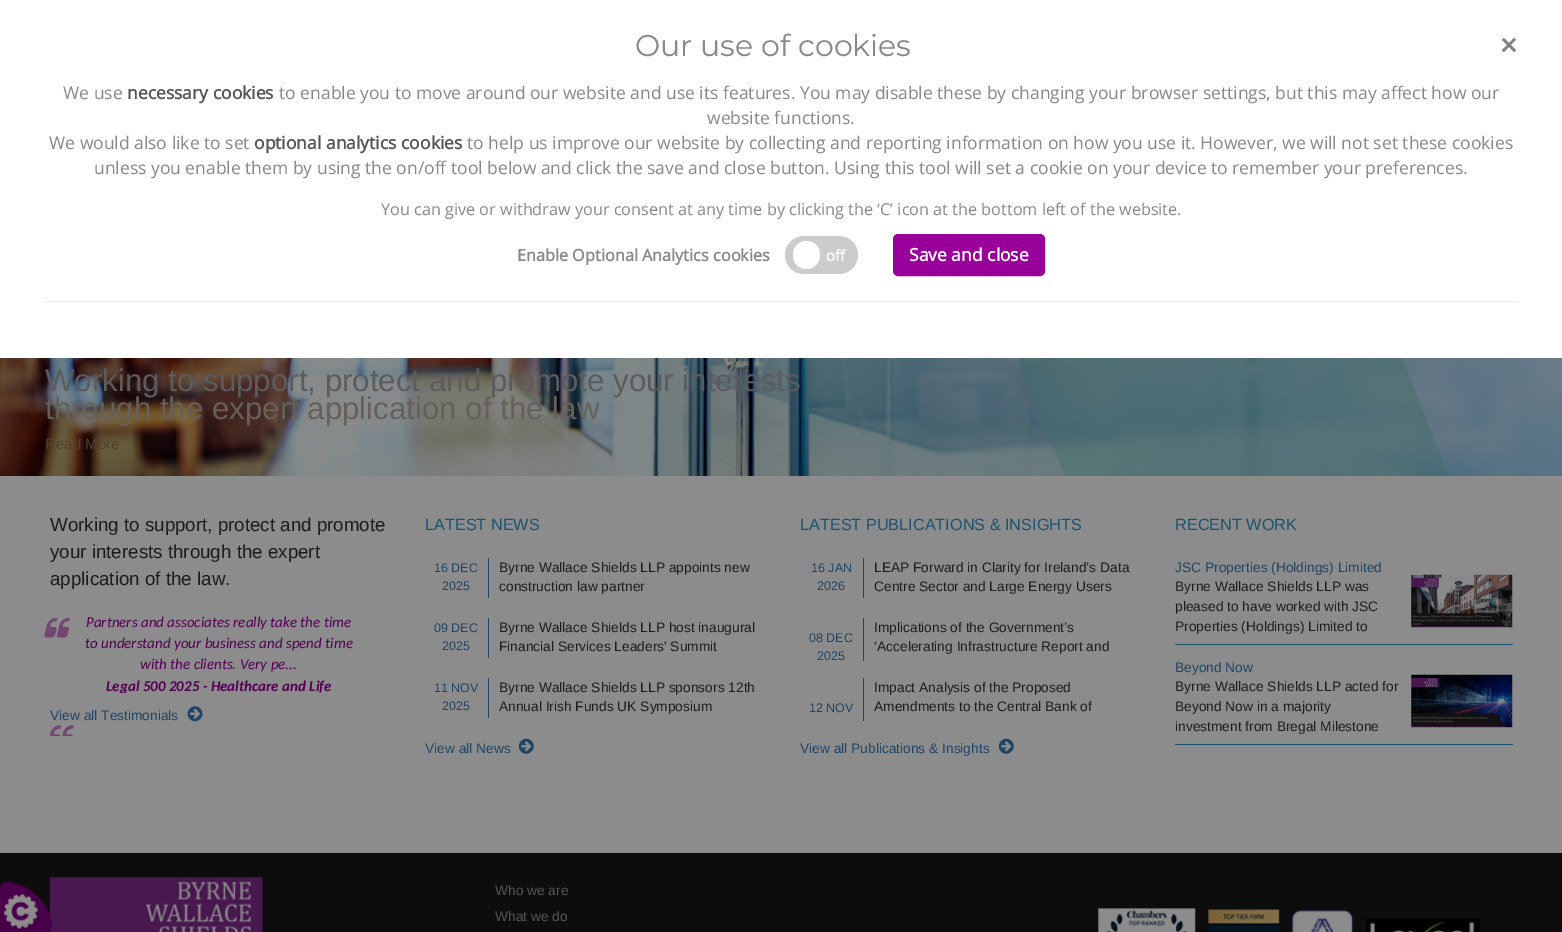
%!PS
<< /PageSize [1562 932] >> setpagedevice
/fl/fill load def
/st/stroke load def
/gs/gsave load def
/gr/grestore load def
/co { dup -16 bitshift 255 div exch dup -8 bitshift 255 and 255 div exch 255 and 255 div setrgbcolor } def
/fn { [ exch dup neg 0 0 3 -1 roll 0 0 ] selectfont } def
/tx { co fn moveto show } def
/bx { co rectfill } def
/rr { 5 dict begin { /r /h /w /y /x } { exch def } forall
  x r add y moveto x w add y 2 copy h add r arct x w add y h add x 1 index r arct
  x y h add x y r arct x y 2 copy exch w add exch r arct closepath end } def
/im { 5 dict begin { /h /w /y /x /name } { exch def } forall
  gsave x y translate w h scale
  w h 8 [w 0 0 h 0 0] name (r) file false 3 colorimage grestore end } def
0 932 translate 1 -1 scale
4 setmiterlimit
0 0 1562 932 16#8C8C8C bx
0 0 1562 358 16#FFFFFF bx
16#CCCCCC co
785 236 73 38 19 rr fl
16#FFFFFF co
793 241 27 28 13.5 rr fl
16#990099 co
893.5 234.5 151 41 4.5 rr gs fl gr
st
45 301 1473 1 16#EEEEEE bx
(media/1.raw) 0 358 1562 118 im
(media/2.raw) 44 617 26 21 im
(media/3.raw) 49 725 25 11 im
(media/4.raw) 187 706 16 16 im
488 558 1 40 16#1E4567 bx
488 618 1 40 16#1E4567 bx
488 678 1 40 16#1E4567 bx
(media/5.raw) 518 738 16 16 im
863 558 1 40 16#1E4567 bx
863 618 1 43 16#1E4567 bx
863 678 1 43 16#1E4567 bx
(media/5.raw) 998 738 16 16 im
1175 644 338 1 16#1C5470 bx
(media/6.raw) 1411 574 102 54 im
1175 744 338 1 16#1C5470 bx
(media/7.raw) 1411 674 102 54 im
0 853 1562 79 16#0D0D0D bx
(media/9.raw) 50 877 213 55 im
(media/8.raw) 0 881 53 51 im
(media/10.raw) 1098 908 383 24 im
(Our use of cookies) 635 56 /Montserrat-Thin 30 16#888888 tx
(×) 1500 56 /OpenSans-Bold 30 16#808080 tx
(We use) 63 99 /OpenSans-Regular 17.5 16#888888 tx
(necessary cookies) 127 99 /OpenSans-Bold 17.5 16#555555 tx
(to enable you to move around our website and use its features. You may disable these by changing your browser settings, but this may affect how our) 279 99 /OpenSans-Regular 17.5 16#888888 tx
(website functions.) 707 124 /OpenSans-Regular 17.5 16#888888 tx
(We would also like to set) 49 149 /OpenSans-Regular 17.5 16#888888 tx
(optional analytics cookies) 254 149 /OpenSans-Bold 17.5 16#555555 tx
(to help us improve our website by collecting and reporting information on how you use it. However, we will not set these cookies) 467 149 /OpenSans-Regular 17.5 16#888888 tx
(unless you enable them by using the on/off tool below and click the save and close button. Using this tool will set a cookie on your device to remember your preferences.) 94 174 /OpenSans-Regular 17.5 16#888888 tx
(You can give or withdraw your consent at any time by clicking the ‘C’ icon at the bottom left of the website.) 381 215 /OpenSans-Regular 16.25 16#888888 tx
(Enable Optional Analytics cookies) 517 261 /OpenSans-Bold 16.25 16#888888 tx
(off) 826 261 /OpenSans-Bold 15 16#FFFFFF tx
(Save and close) 909 261 /OpenSans-Bold 17.5 16#FFFFFF tx
(Working to support, protect and promote your interests) 45 391 /LiberationSans-Regular 31.25 16#5C5C5E tx
(through the expert application of the law) 45 419 /LiberationSans-Regular 31.25 16#666059 tx
(Read More) 45 449 /LiberationSans-Regular 15 16#533F29 tx
(Working to support, protect and promote) 50 531 /LiberationSans-Regular 18.75 16#1D1D1D tx
(your interests through the expert) 50 558 /LiberationSans-Regular 18.75 16#1D1D1D tx
(application of the law.) 50 585 /LiberationSans-Regular 18.75 16#1D1D1D tx
(Partners and associates really take the time) 86 627 /Carlito-Italic 15 16#540054 tx
(to understand your business and spend time) 85 648 /Carlito-Italic 15 16#540054 tx
(with the clients. Very pe...) 140 669 /Carlito-Italic 15 16#540054 tx
gs
50 611 338 82 rectclip
(Legal 500 2025 - Healthcare and Life) 106 691 /Carlito-BoldItalic 15 16#540054 tx
gr
(View all Testimonials) 50 720 /LiberationSans-Regular 13.75 16#1E4567 tx
(LATEST NEWS) 425 530 /LiberationSans-Regular 16.25 16#1C5470 tx
(16 DEC) 434 572 /LiberationSans-Regular 12.5 16#1E4567 tx
(2025) 442 590 /LiberationSans-Regular 12.5 16#1E4567 tx
(Byrne Wallace Shields LLP appoints new) 499 572 /LiberationSans-Regular 13.75 16#1D1D1D tx
(construction law partner) 499 591 /LiberationSans-Regular 13.75 16#1D1D1D tx
(09 DEC) 434 632 /LiberationSans-Regular 12.5 16#1E4567 tx
(2025) 442 650 /LiberationSans-Regular 12.5 16#1E4567 tx
(Byrne Wallace Shields LLP host inaugural) 499 632 /LiberationSans-Regular 13.75 16#1D1D1D tx
(Financial Services Leaders' Summit) 499 651 /LiberationSans-Regular 13.75 16#1D1D1D tx
(11 NOV) 434 692 /LiberationSans-Regular 12.5 16#1E4567 tx
(2025) 442 710 /LiberationSans-Regular 12.5 16#1E4567 tx
(Byrne Wallace Shields LLP sponsors 12th) 499 692 /LiberationSans-Regular 13.75 16#1D1D1D tx
(Annual Irish Funds UK Symposium) 499 711 /LiberationSans-Regular 13.75 16#1D1D1D tx
(View all News) 425 753 /LiberationSans-Regular 13.75 16#1E4567 tx
(LATEST PUBLICATIONS & INSIGHTS) 800 530 /LiberationSans-Regular 16.25 16#1C5470 tx
(16 JAN) 811 572 /LiberationSans-Regular 12.5 16#1E4567 tx
(2026) 817 590 /LiberationSans-Regular 12.5 16#1E4567 tx
(LEAP Forward in Clarity for Ireland’s Data) 874 572 /LiberationSans-Regular 13.75 16#1D1D1D tx
(Centre Sector and Large Energy Users) 874 591 /LiberationSans-Regular 13.75 16#1D1D1D tx
(08 DEC) 809 642 /LiberationSans-Regular 12.5 16#1E4567 tx
(2025) 817 660 /LiberationSans-Regular 12.5 16#1E4567 tx
(Implications of the Government’s) 874 632 /LiberationSans-Regular 13.75 16#1D1D1D tx
(‘Accelerating Infrastructure Report and) 874 651 /LiberationSans-Regular 13.75 16#1D1D1D tx
(12 NOV) 809 712 /LiberationSans-Regular 12.5 16#1E4567 tx
(Impact Analysis of the Proposed) 874 692 /LiberationSans-Regular 13.75 16#1D1D1D tx
(Amendments to the Central Bank of) 874 711 /LiberationSans-Regular 13.75 16#1D1D1D tx
(View all Publications & Insights) 800 753 /LiberationSans-Regular 13.75 16#1E4567 tx
(RECENT WORK) 1175 530 /LiberationSans-Regular 16.25 16#1C5470 tx
(JSC Properties \(Holdings\) Limited) 1175 572 /LiberationSans-Regular 13.75 16#1E4567 tx
(Byrne Wallace Shields LLP was) 1175 591 /LiberationSans-Regular 13.75 16#1D1D1D tx
(pleased to have worked with JSC) 1175 611 /LiberationSans-Regular 13.75 16#1D1D1D tx
(Properties \(Holdings\) Limited to) 1175 631 /LiberationSans-Regular 13.75 16#1D1D1D tx
(Beyond Now) 1175 672 /LiberationSans-Regular 13.75 16#1E4567 tx
(Byrne Wallace Shields LLP acted for) 1175 691 /LiberationSans-Regular 13.75 16#1D1D1D tx
(Beyond Now in a majority) 1175 711 /LiberationSans-Regular 13.75 16#1D1D1D tx
(investment from Bregal Milestone) 1175 731 /LiberationSans-Regular 13.75 16#1D1D1D tx
(Who we are) 495 895 /LiberationSans-Regular 13.75 16#555555 tx
(What we do) 495 921 /LiberationSans-Regular 13.75 16#555555 tx
showpage
